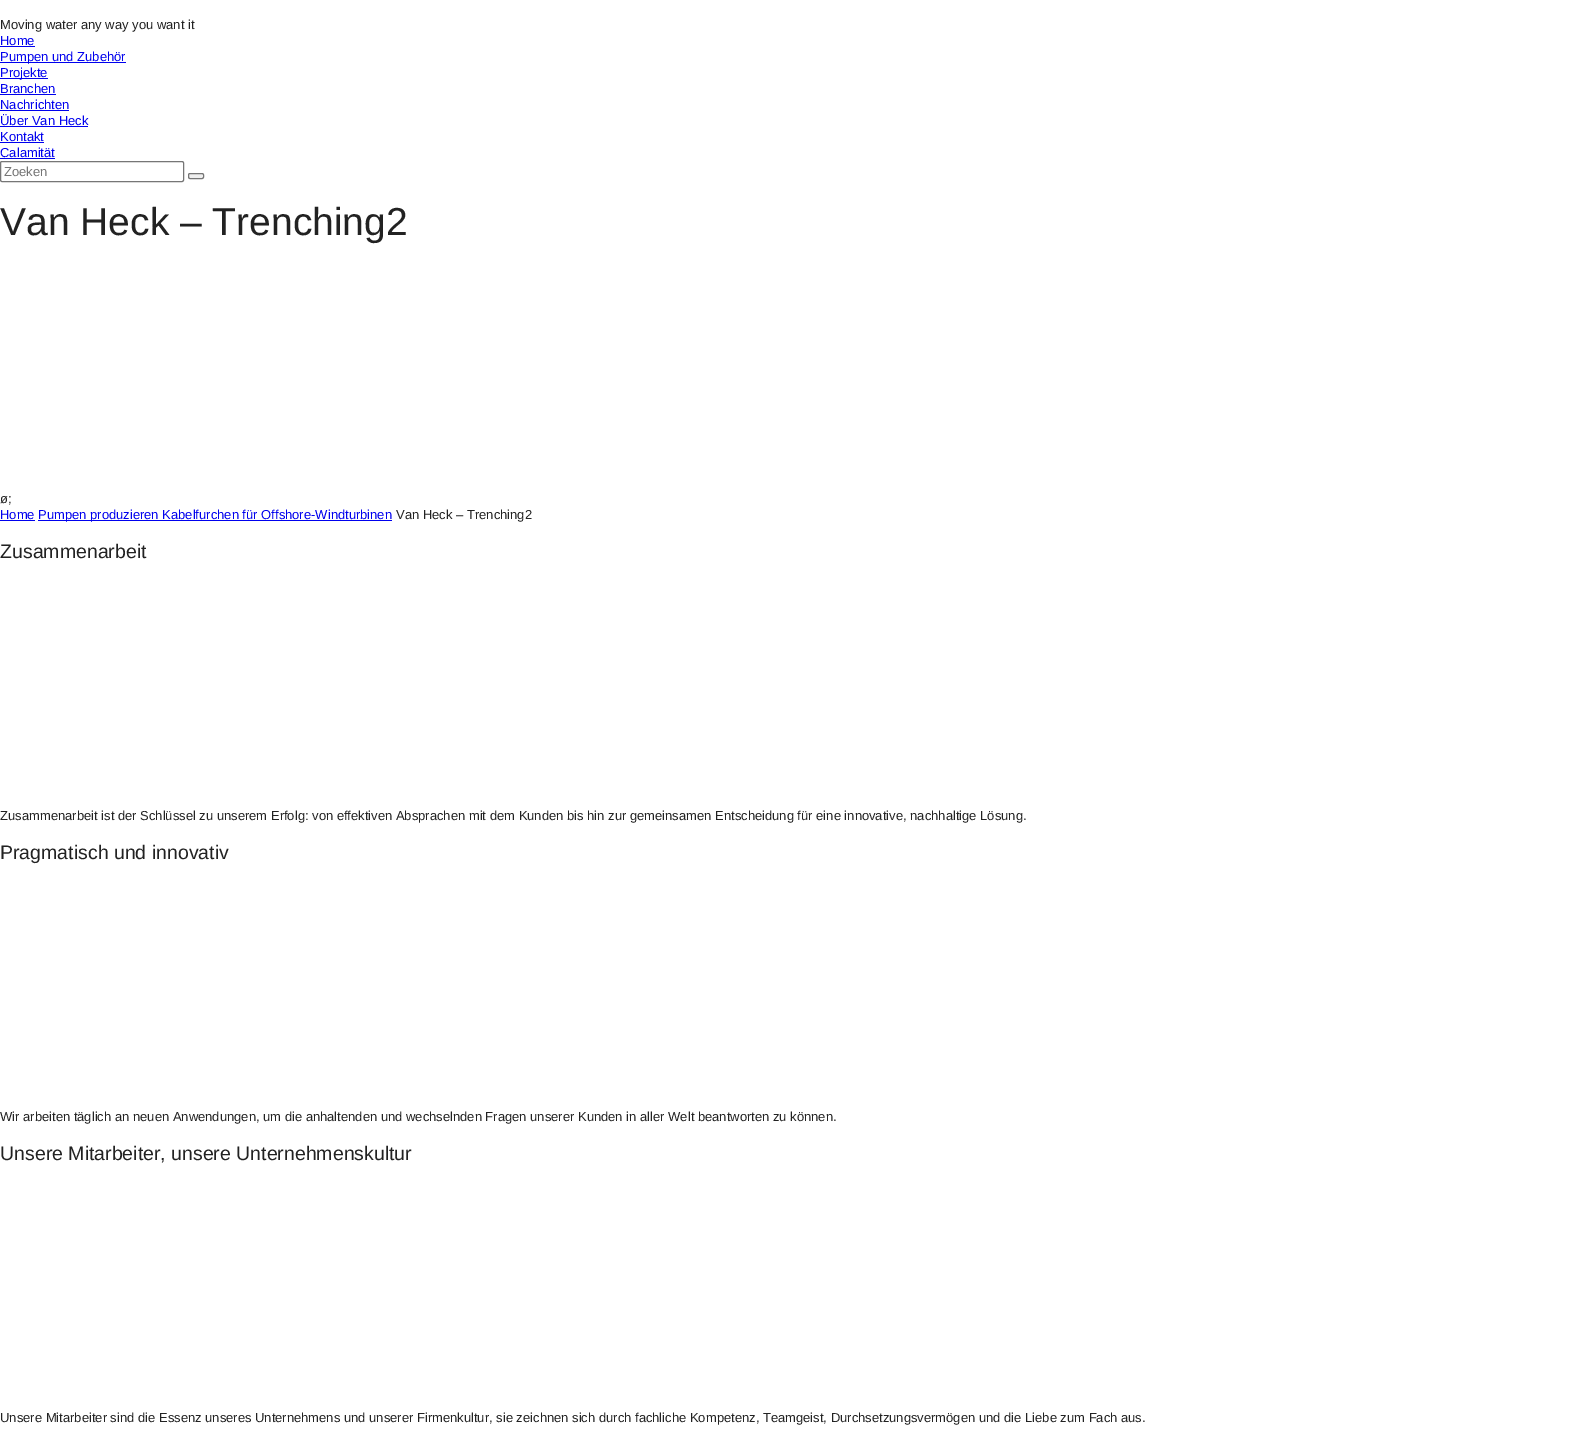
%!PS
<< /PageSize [1590 1431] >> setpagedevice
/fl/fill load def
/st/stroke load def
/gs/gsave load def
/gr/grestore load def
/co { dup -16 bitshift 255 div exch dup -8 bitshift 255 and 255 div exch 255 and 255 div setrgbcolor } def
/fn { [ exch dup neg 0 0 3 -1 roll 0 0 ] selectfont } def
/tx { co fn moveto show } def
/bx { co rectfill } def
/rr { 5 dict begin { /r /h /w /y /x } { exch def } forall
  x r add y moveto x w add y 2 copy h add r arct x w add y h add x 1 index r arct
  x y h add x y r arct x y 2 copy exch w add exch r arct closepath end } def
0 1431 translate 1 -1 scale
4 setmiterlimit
0 0 1590 1431 16#FFFFFF bx
0 46 35 1 16#0000EE bx
0 62 126 1 16#0000EE bx
0 78 48 1 16#0000EE bx
0 94 56 1 16#0000EE bx
0 110 69 1 16#0000EE bx
0 126 88 1 16#0000EE bx
0 142 44 1 16#0000EE bx
0 158 55 1 16#0000EE bx
16#767676 co
.5 161.5 183 20 1.5 rr st
16#EFEFEF co
188.5 173.5 15 5 1.5 rr gs fl gr
16#767676 co
st
0 520 35 1 16#0000EE bx
38 520 354 1 16#0000EE bx
(Moving water any way you want it) 0 29 /LiberationSans-Regular 13 16#222222 tx
(Home) 0 45 /LiberationSans-Regular 13 16#0000EE tx
(Pumpen und Zubehör) 0 61 /LiberationSans-Regular 13 16#0000EE tx
(Projekte) 0 77 /LiberationSans-Regular 13 16#0000EE tx
(Branchen) 0 93 /LiberationSans-Regular 13 16#0000EE tx
(Nachrichten) 0 109 /LiberationSans-Regular 13 16#0000EE tx
(Über Van Heck) 0 125 /LiberationSans-Regular 13 16#0000EE tx
(Kontakt) 0 141 /LiberationSans-Regular 13 16#0000EE tx
(Calamität) 0 157 /LiberationSans-Regular 13 16#0000EE tx
(Zoeken) 4 176 /LiberationSans-Regular 13 16#757575 tx
(Van Heck – Trenching2) 0 235 /LiberationSans-Regular 39 16#222222 tx
(ø;) 0 503 /LiberationSans-Regular 13 16#222222 tx
(Home) 0 519 /LiberationSans-Regular 13 16#0000EE tx
(Pumpen produzieren Kabelfurchen für Offshore-Windturbinen) 38 519 /LiberationSans-Regular 13 16#0000EE tx
(Van Heck – Trenching2) 396 519 /LiberationSans-Regular 13 16#222222 tx
(Zusammenarbeit) 0 558 /LiberationSans-Regular 19.5 16#222222 tx
(Zusammenarbeit ist der Schlüssel zu unserem Erfolg: von effektiven Absprachen mit dem Kunden bis hin zur gemeinsamen Entscheidung für eine innovative, nachhaltige Lösung.) 0 820 /LiberationSans-Regular 13 16#222222 tx
(Pragmatisch und innovativ) 0 859 /LiberationSans-Regular 19.5 16#222222 tx
(Wir arbeiten täglich an neuen Anwendungen, um die anhaltenden und wechselnden Fragen unserer Kunden in aller Welt beantworten zu können.) 0 1121 /LiberationSans-Regular 13 16#222222 tx
(Unsere Mitarbeiter, unsere Unternehmenskultur) 0 1160 /LiberationSans-Regular 19.5 16#222222 tx
(Unsere Mitarbeiter sind die Essenz unseres Unternehmens und unserer Firmenkultur, sie zeichnen sich durch fachliche Kompetenz, Teamgeist, Durchsetzungsvermögen und die Liebe zum Fach aus.) 0 1422 /LiberationSans-Regular 13 16#222222 tx
showpage
